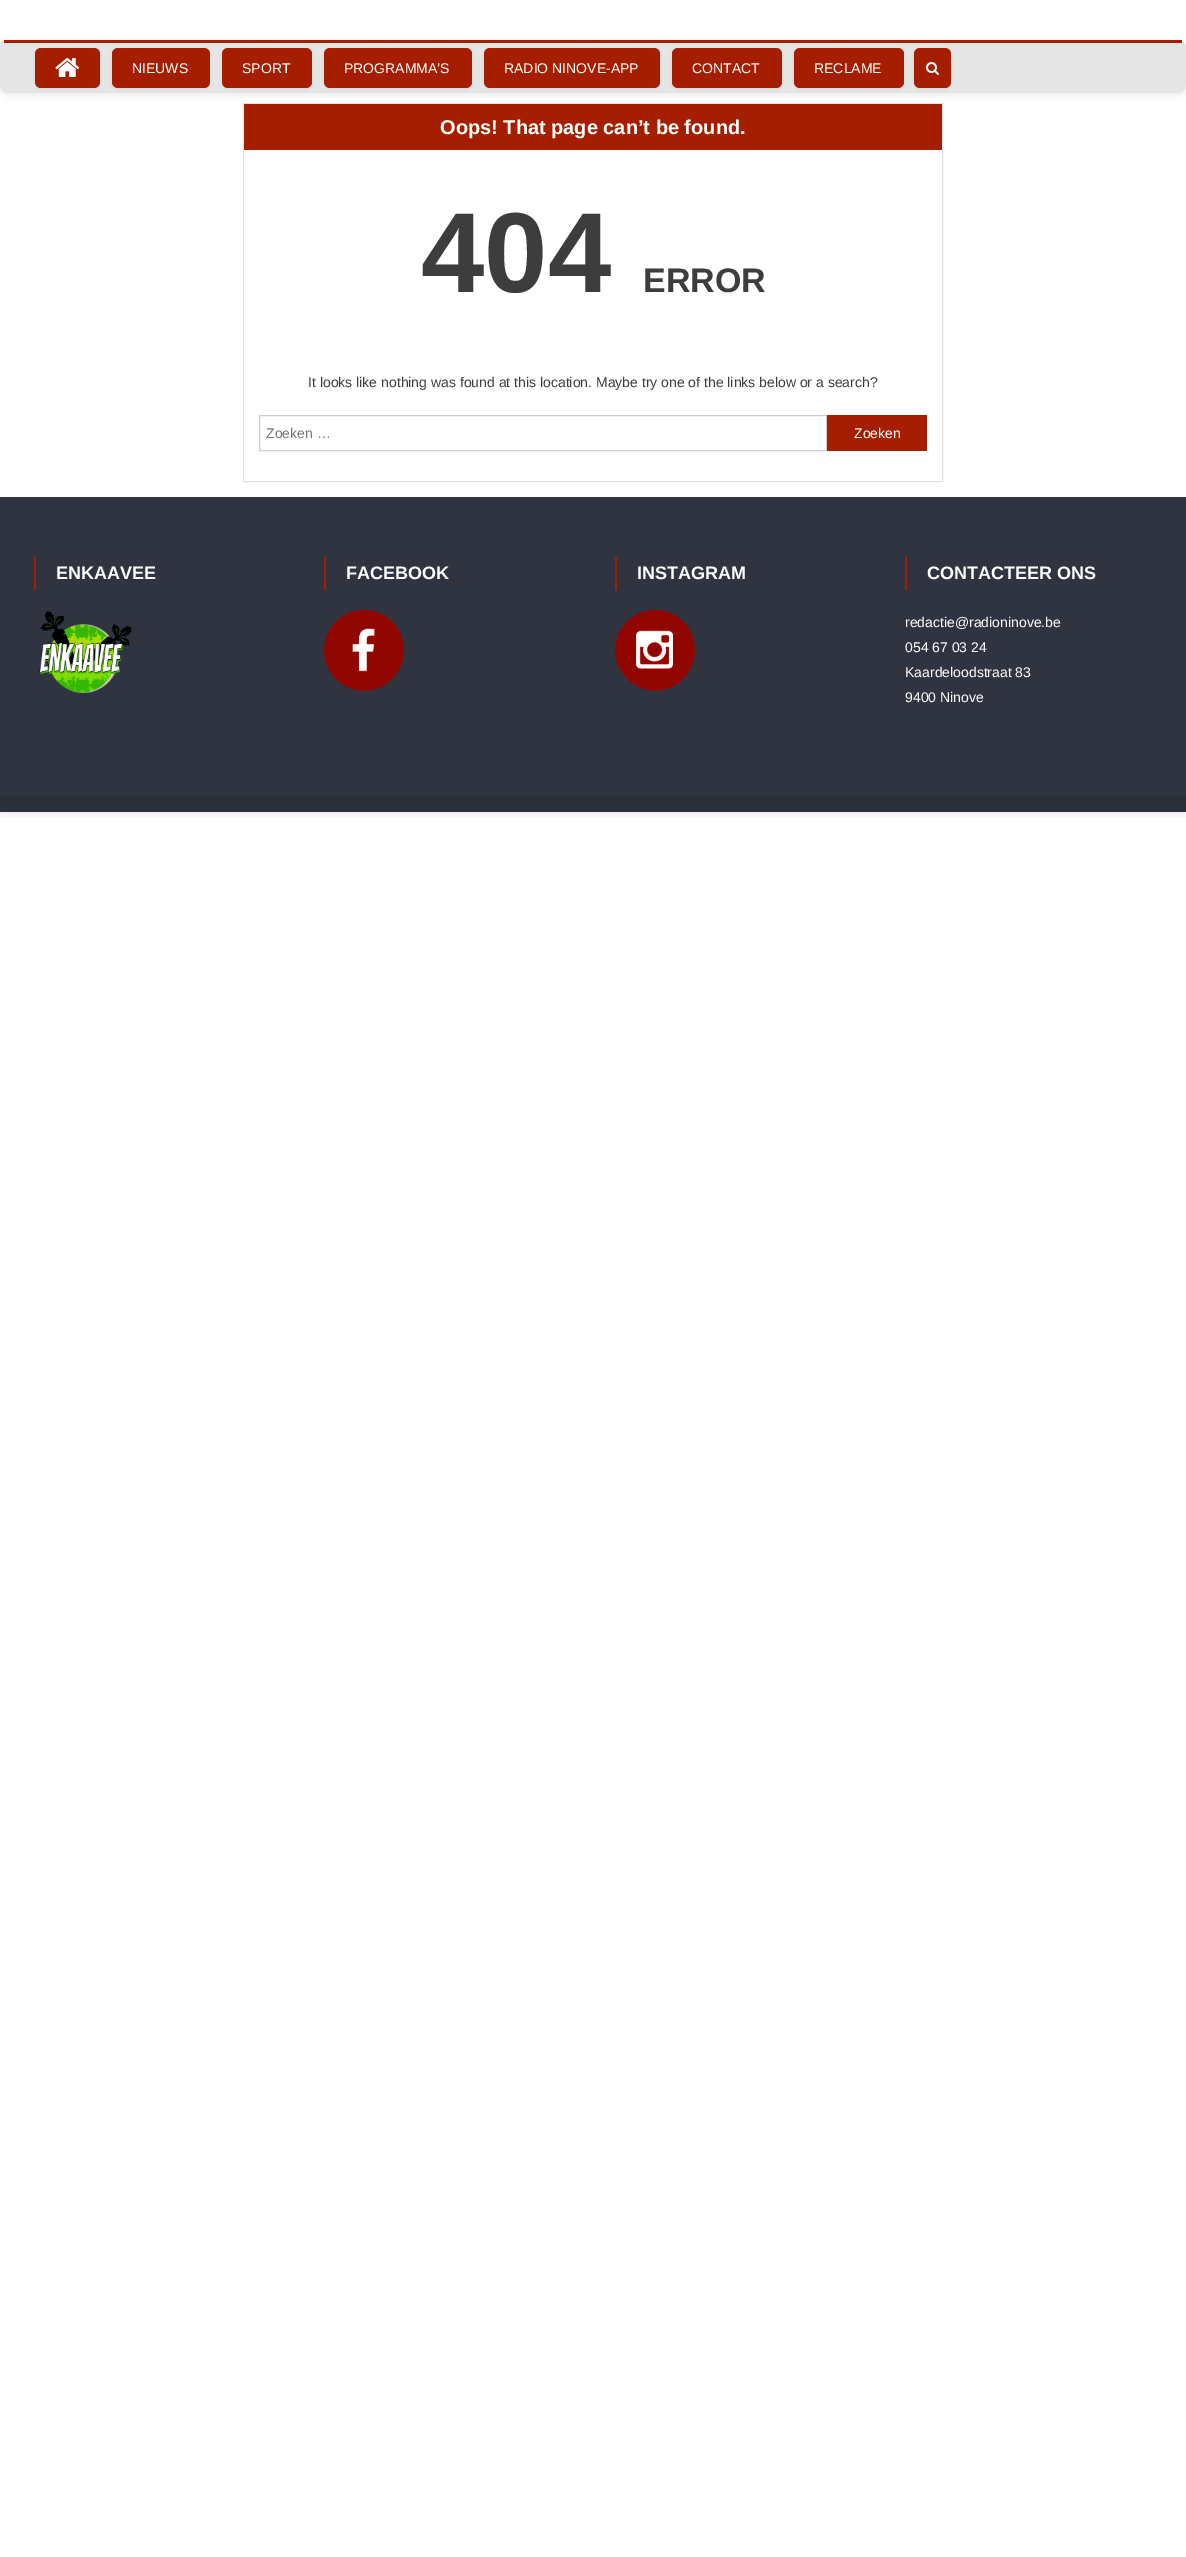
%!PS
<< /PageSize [1186 2557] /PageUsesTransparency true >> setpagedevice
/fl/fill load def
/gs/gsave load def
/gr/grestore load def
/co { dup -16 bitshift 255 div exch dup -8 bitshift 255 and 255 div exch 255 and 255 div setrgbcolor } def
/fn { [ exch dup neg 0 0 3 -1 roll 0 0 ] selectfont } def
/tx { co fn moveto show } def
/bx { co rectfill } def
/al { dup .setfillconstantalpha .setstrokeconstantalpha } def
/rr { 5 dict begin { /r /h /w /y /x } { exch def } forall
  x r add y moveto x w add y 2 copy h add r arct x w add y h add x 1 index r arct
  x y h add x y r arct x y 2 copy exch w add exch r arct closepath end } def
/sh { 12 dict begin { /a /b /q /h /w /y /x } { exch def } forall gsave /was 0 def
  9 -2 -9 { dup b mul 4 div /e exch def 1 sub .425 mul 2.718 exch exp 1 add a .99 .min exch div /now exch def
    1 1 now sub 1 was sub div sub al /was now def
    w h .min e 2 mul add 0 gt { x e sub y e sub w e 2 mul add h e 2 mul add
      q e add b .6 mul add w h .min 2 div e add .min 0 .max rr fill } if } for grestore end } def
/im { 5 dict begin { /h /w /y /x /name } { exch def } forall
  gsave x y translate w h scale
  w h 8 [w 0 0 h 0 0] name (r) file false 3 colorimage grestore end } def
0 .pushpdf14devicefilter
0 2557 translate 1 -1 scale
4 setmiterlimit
0 0 1186 2557 16#FFFFFF bx
gs
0 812 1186 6 rectclip
16#000000 co
0 0 1186 812 0 7.5 .1 sh
gr
16#000000 co
0 42 1186 53 8 3 .08 sh
16#E5E5E5 co
0 40 1186 53 8 rr fl
4 40 1178 3 16#A51E00 bx
16#000000 co
35 49 65 40 6 1.5 .05 sh
16#A51E00 co
35 48 65 40 6 rr fl
(media/1.raw) 55 58 25 19 im
16#000000 co
112 49 98 40 6 1.5 .05 sh
16#A51E00 co
112 48 98 40 6 rr fl
16#000000 co
222 49 90 40 6 1.5 .05 sh
16#A51E00 co
222 48 90 40 6 rr fl
16#000000 co
324 49 148 40 6 1.5 .05 sh
16#A51E00 co
324 48 148 40 6 rr fl
16#000000 co
484 49 176 40 6 1.5 .05 sh
16#A51E00 co
484 48 176 40 6 rr fl
16#000000 co
672 49 110 40 6 1.5 .05 sh
16#A51E00 co
672 48 110 40 6 rr fl
16#000000 co
794 49 110 40 6 1.5 .05 sh
16#A51E00 co
794 48 110 40 6 rr fl
16#000000 co
914 49 37 40 6 1.5 .05 sh
16#A51E00 co
914 48 37 40 6 rr fl
(media/2.raw) 926 62 13 13 im
16#E1E1E1 co
243.5 103.5 699 378 rectstroke
244 104 698 46 16#A51E00 bx
16#CCCCCC co
259.5 415.5 567 35 rectstroke
827 415 100 36 16#A51E00 bx
0 497 1186 299 16#303440 bx
34 557 2 33 16#A51E00 bx
(media/3.raw) 39 611 93 83 im
324 557 2 33 16#A51E00 bx
(media/4.raw) 324 610 80 81 im
615 557 2 33 16#A51E00 bx
(media/5.raw) 615 610 80 81 im
905 557 2 33 16#A51E00 bx
0 796 1186 16 16#2B2F3A bx
(NIEUWS) 132 73 /LiberationSans-Regular 14 16#FFFFFF tx
(SPORT) 242 73 /LiberationSans-Regular 14 16#FFFFFF tx
(PROGRAMMA’S) 344 73 /LiberationSans-Regular 14 16#FFFFFF tx
(RADIO NINOVE-APP) 504 73 /LiberationSans-Regular 14 16#FFFFFF tx
(CONTACT) 692 73 /LiberationSans-Regular 14 16#FFFFFF tx
(RECLAME) 814 73 /LiberationSans-Regular 14 16#FFFFFF tx
(Oops! That page can’t be found.) 440 134 /LiberationSans-Bold 20 16#FFFFFF tx
(404) 421 292 /LiberationSans-Bold 114 16#3D3D3D tx
(ERROR) 643 292 /LiberationSans-Bold 34 16#3D3D3D tx
(It looks like nothing was found at this location. Maybe try one of the links below or a search?) 308 387 /LiberationSans-Regular 14 16#3D3D3D tx
(Zoeken …) 266 438 /LiberationSans-Regular 14 16#757575 tx
(Zoeken) 854 438 /LiberationSans-Regular 14 16#FFFFFF tx
(ENKAAVEE) 56 579 /LiberationSans-Bold 18 16#FFFFFF tx
(FACEBOOK) 346 579 /LiberationSans-Bold 18 16#FFFFFF tx
(INSTAGRAM) 637 579 /LiberationSans-Bold 18 16#FFFFFF tx
(CONTACTEER ONS) 927 579 /LiberationSans-Bold 18 16#FFFFFF tx
(redactie@radioninove.be) 905 627 /LiberationSans-Regular 14 16#FFFFFF tx
(054 67 03 24) 905 652 /LiberationSans-Regular 14 16#FFFFFF tx
(Kaardeloodstraat 83) 905 677 /LiberationSans-Regular 14 16#FFFFFF tx
(9400 Ninove) 905 702 /LiberationSans-Regular 14 16#FFFFFF tx
.poppdf14devicefilter showpage
